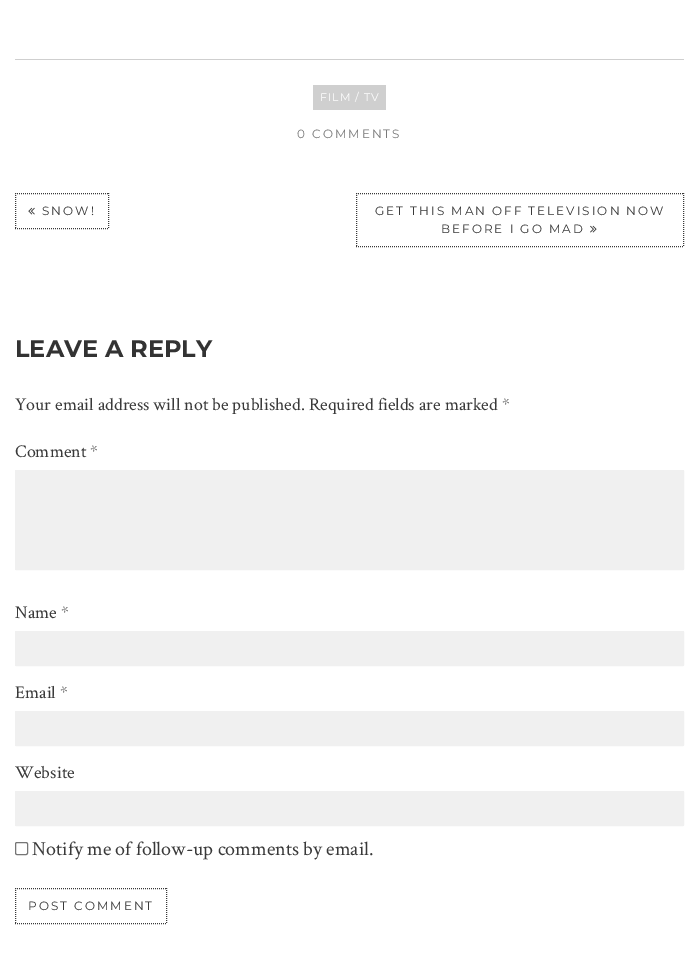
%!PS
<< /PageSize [699 955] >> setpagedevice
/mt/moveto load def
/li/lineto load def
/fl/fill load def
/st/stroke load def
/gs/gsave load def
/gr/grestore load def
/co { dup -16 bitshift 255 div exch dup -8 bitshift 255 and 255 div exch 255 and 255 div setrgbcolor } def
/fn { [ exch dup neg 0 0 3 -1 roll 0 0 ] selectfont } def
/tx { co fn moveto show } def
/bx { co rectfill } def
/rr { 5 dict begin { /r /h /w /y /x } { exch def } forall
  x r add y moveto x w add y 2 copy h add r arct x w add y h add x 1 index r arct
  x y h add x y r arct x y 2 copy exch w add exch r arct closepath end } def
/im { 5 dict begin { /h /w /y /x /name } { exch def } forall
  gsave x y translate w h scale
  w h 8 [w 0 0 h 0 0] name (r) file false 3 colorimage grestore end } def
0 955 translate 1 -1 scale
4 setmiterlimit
0 0 699 955 16#FFFFFF bx
15 59 669 1 16#CFCFCF bx
313 85 73 25 16#CFCFCF bx
16#393939 co
[1 1] 0 setdash
15 193.5 mt 109 193.5 li st
108.5 193 mt 108.5 229 li st
15 228.5 mt 109 228.5 li st
15.5 193 mt 15.5 229 li st
(media/1.raw) 28 207 7 8 im
356 193.5 mt 684 193.5 li st
683.5 193 mt 683.5 247 li st
356 246.5 mt 684 246.5 li st
356.5 193 mt 356.5 247 li st
(media/2.raw) 590 225 7 8 im
16#F0F0F0 co
15.5 470.5 668 99 .5 rr gs fl gr
[] 0 setdash
st
15.5 631.5 668 34 .5 rr gs fl gr
st
15.5 711.5 668 34 .5 rr gs fl gr
st
15.5 791.5 668 34 .5 rr gs fl gr
st
16#767676 co
15.5 842.5 12 12 1.5 rr st
16#393939 co
[1 1] 0 setdash
15 888.5 mt 167 888.5 li st
166.5 888 mt 166.5 924 li st
15 923.5 mt 167 923.5 li st
15.5 888 mt 15.5 924 li st
/Montserrat-Regular 11 fn
16#FFFFFF co
320 101 mt 1 0 (FILM / TV) ashow
/Montserrat-Regular 12 fn
16#797979 co
297 138 mt 2 0 (0 COMMENTS) ashow
16#393939 co
42 215 mt 2 0 (SNOW!) ashow
375 215 mt 2 0 (GET THIS MAN OFF TELEVISION NOW) ashow
441 233 mt 2 0 (BEFORE I GO MAD) ashow
(LEAVE A REPLY) 15 357 /Montserrat-Bold 24 16#333333 tx
(Your email address will not be published. Required fields are marked) 15 410 /CrimsonText-Regular 18 16#393939 tx
(*) 502 410 /CrimsonText-Regular 18 16#797979 tx
(Comment) 15 457 /CrimsonText-Regular 18 16#393939 tx
(*) 90 457 /CrimsonText-Regular 18 16#797979 tx
(Name) 15 618 /CrimsonText-Regular 18 16#393939 tx
(*) 61 618 /CrimsonText-Regular 18 16#797979 tx
(Email) 15 698 /CrimsonText-Regular 18 16#393939 tx
(*) 60 698 /CrimsonText-Regular 18 16#797979 tx
(Website) 15 778 /CrimsonText-Regular 18 16#393939 tx
(Notify me of follow-up comments by email.) 32 855 /CrimsonText-Regular 20 16#393939 tx
/Montserrat-Regular 12 fn
28 910 mt 2 0 (POST COMMENT) ashow
showpage
